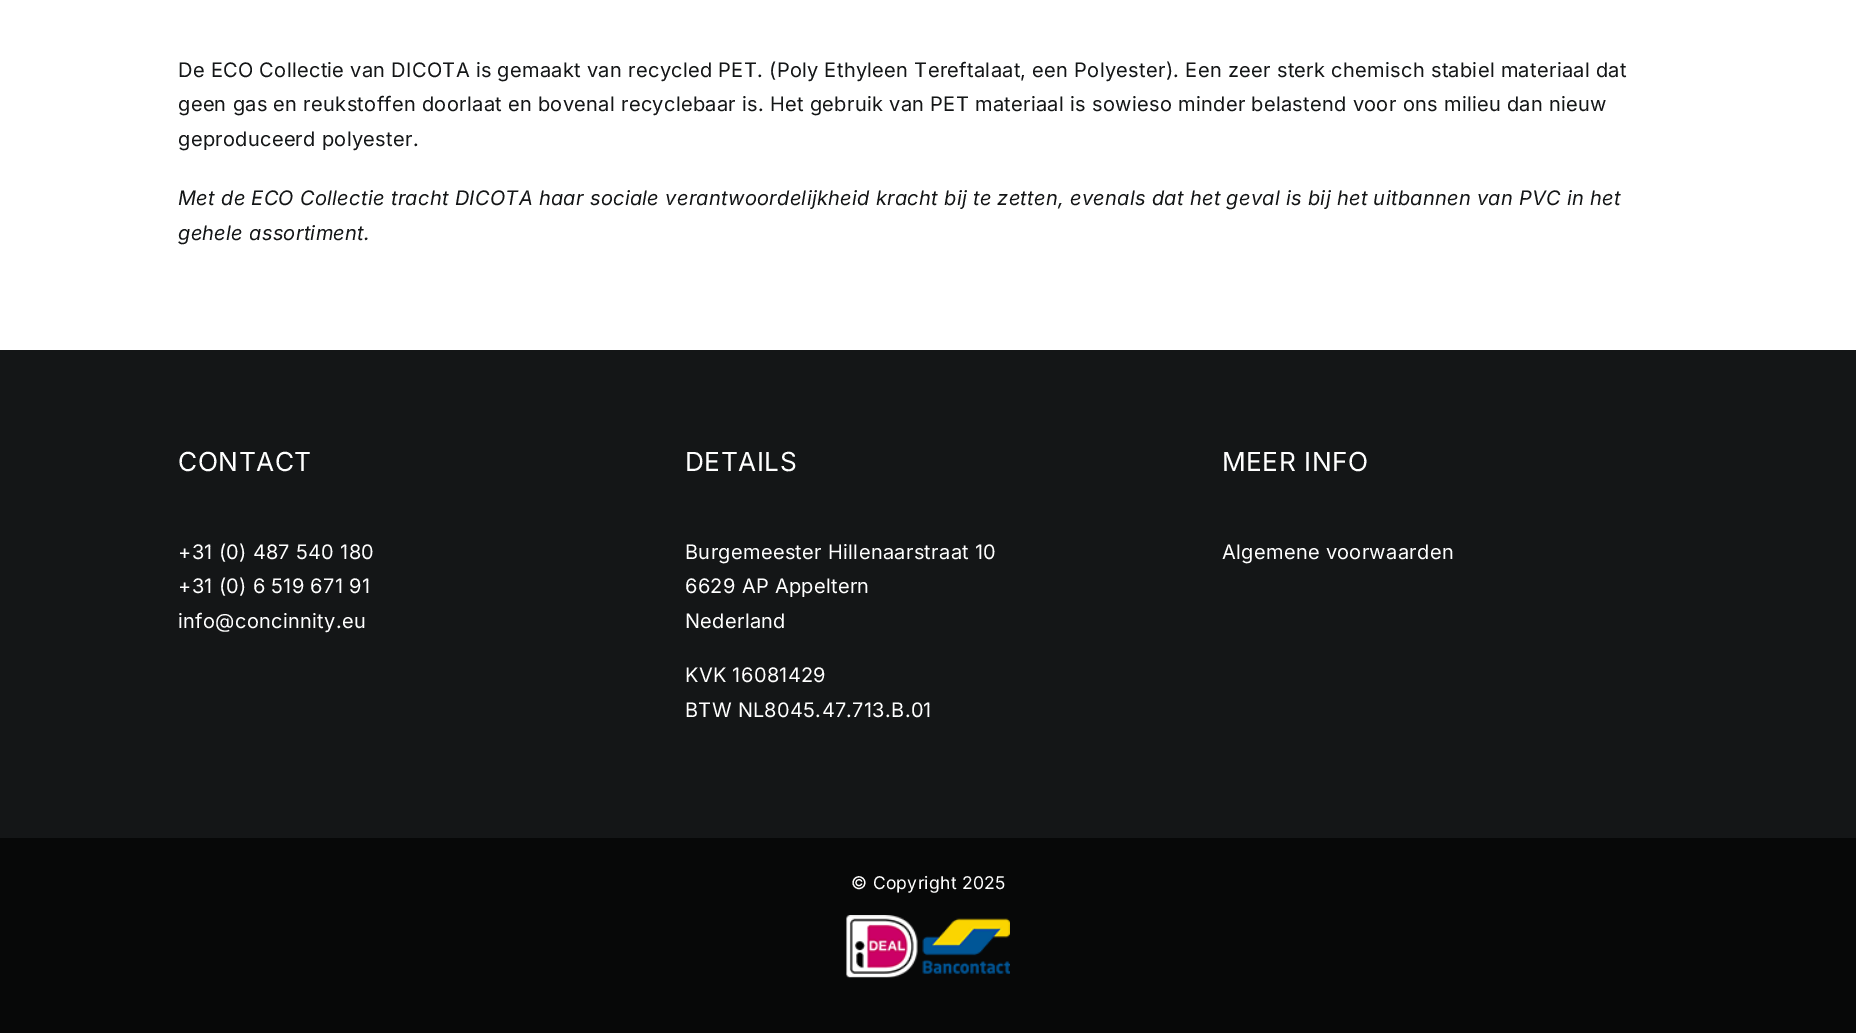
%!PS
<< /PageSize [1856 1033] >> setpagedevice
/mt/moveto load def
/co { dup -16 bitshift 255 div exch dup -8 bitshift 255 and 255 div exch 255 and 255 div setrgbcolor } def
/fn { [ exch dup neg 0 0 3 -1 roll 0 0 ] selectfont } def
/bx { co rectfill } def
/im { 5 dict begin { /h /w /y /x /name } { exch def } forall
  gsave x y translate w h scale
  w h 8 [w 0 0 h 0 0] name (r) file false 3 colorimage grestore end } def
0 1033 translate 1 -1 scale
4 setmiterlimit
0 0 1856 1033 16#FFFFFF bx
0 350 1856 488 16#141617 bx
0 838 1856 195 16#070808 bx
(media/1.raw) 846 915 164 63 im
/Inter-Regular 20 fn
16#141617 co
178 77 mt .3 0 (De ECO Collectie van DICOTA is gemaakt van recycled PET. \(Poly Ethyleen Tereftalaat, een Polyester\). Een zeer sterk chemisch stabiel materiaal dat) ashow
178 111 mt .3 0 (geen gas en reukstoffen doorlaat en bovenal recyclebaar is. Het gebruik van PET materiaal is sowieso minder belastend voor ons milieu dan nieuw) ashow
178 146 mt .3 0 (geproduceerd polyester.) ashow
/Inter-Italic 20 fn
178 205 mt .3 0 (Met de ECO Collectie tracht DICOTA haar sociale verantwoordelijkheid kracht bij te zetten, evenals dat het geval is bij het uitbannen van PVC in het) ashow
178 240 mt .3 0 (gehele assortiment.) ashow
/Inter-Regular 26.25 fn
16#FFFFFF co
178 471 mt .5 0 (CONTACT) ashow
/Inter-Regular 20 fn
178 559 mt .3 0 (+31 \(0\) 487 540 180) ashow
178 593 mt .3 0 (+31 \(0\) 6 519 671 91) ashow
178 628 mt .3 0 (info@concinnity.eu) ashow
/Inter-Regular 26.25 fn
685 471 mt .5 0 (DETAILS) ashow
/Inter-Regular 20 fn
685 559 mt .3 0 (Burgemeester Hillenaarstraat 10) ashow
685 593 mt .3 0 (6629 AP Appeltern) ashow
685 628 mt .3 0 (Nederland) ashow
685 682 mt .3 0 (KVK 16081429) ashow
685 717 mt .3 0 (BTW NL8045.47.713.B.01) ashow
/Inter-Regular 26.25 fn
1222 471 mt .5 0 (MEER INFO) ashow
/Inter-Regular 20 fn
1222 559 mt .3 0 (Algemene voorwaarden) ashow
/Inter-Regular 17.5 fn
851 889 mt .3 0 (© Copyright 2025) ashow
showpage
